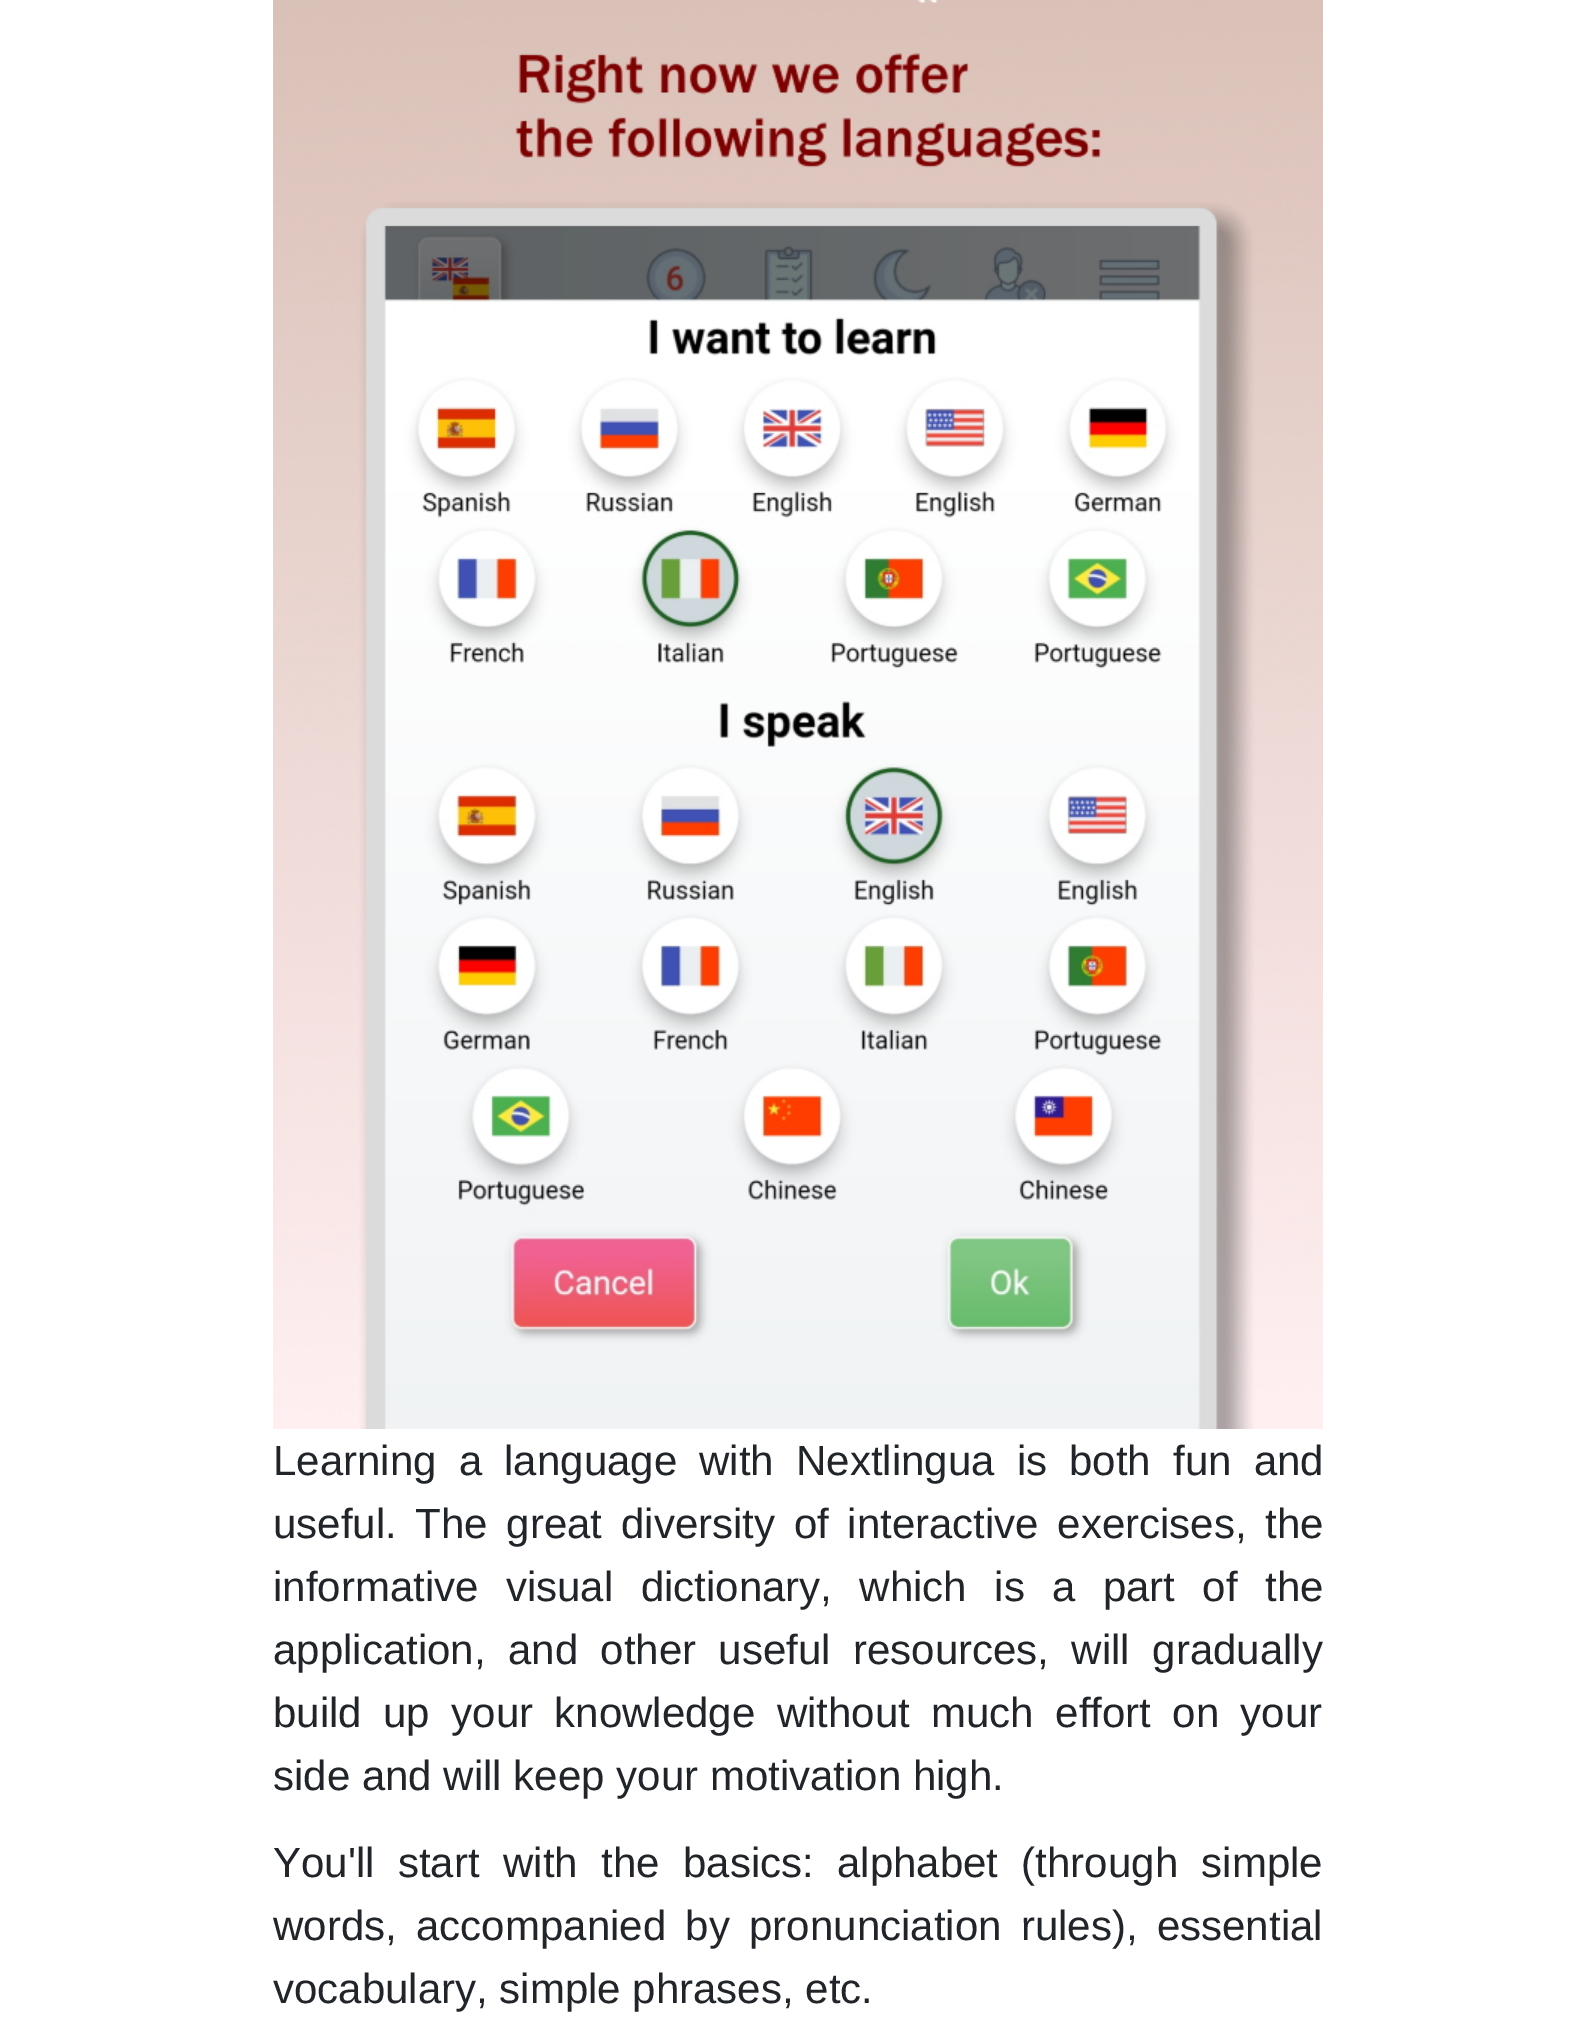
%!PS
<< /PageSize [1595 2025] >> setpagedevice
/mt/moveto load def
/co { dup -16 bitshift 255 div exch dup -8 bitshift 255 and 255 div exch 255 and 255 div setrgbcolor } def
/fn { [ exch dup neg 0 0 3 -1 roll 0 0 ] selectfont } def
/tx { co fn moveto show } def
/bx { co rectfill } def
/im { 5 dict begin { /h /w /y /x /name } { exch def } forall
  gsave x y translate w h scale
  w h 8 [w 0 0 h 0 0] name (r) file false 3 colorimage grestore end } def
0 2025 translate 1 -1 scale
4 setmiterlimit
0 0 1595 2025 16#FFFFFF bx
(media/1.raw) 273 0 1050 1429 im
/LiberationSans-Regular 42 fn
16#212529 co
273 1475 mt 10.5 0 32 (Learning a language with Nextlingua is both fun and) widthshow
273 1538 mt 7 0 32 (useful. The great diversity of interactive exercises, the) widthshow
273 1601 mt 15.75 0 32 (informative visual dictionary, which is a part of the) widthshow
273 1664 mt 10.75 0 32 (application, and other useful resources, will gradually) widthshow
273 1727 mt 9.75 0 32 (build up your knowledge without much effort on your) widthshow
(side and will keep your motivation high.) 273 1790 /LiberationSans-Regular 42 16#212529 tx
273 1877 mt 11.75 0 32 (You'll start with the basics: alphabet \(through simple) widthshow
273 1940 mt 7.75 0 32 (words, accompanied by pronunciation rules\), essential) widthshow
(vocabulary, simple phrases, etc.) 273 2003 /LiberationSans-Regular 42 16#212529 tx
showpage
